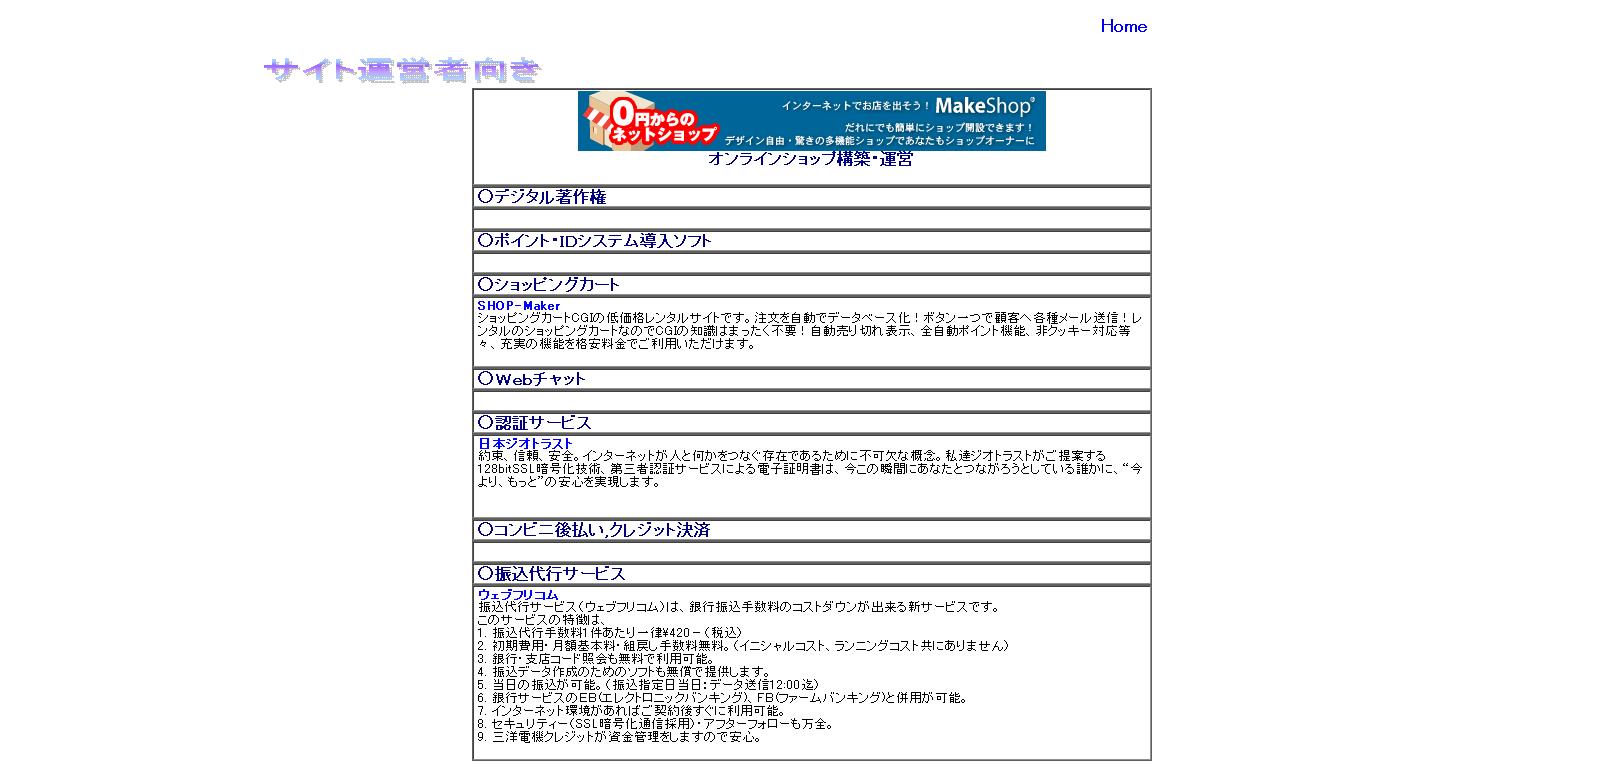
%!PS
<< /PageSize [1624 776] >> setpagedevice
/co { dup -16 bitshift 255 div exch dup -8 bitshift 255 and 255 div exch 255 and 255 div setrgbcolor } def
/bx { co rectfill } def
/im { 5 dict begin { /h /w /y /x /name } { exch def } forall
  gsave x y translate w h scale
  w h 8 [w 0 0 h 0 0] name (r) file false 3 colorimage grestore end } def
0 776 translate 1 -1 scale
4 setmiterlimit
0 0 1624 776 16#FFFFFF bx
(media/2.raw) 472 19 680 742 im
(media/1.raw) 264 57 278 27 im
showpage
